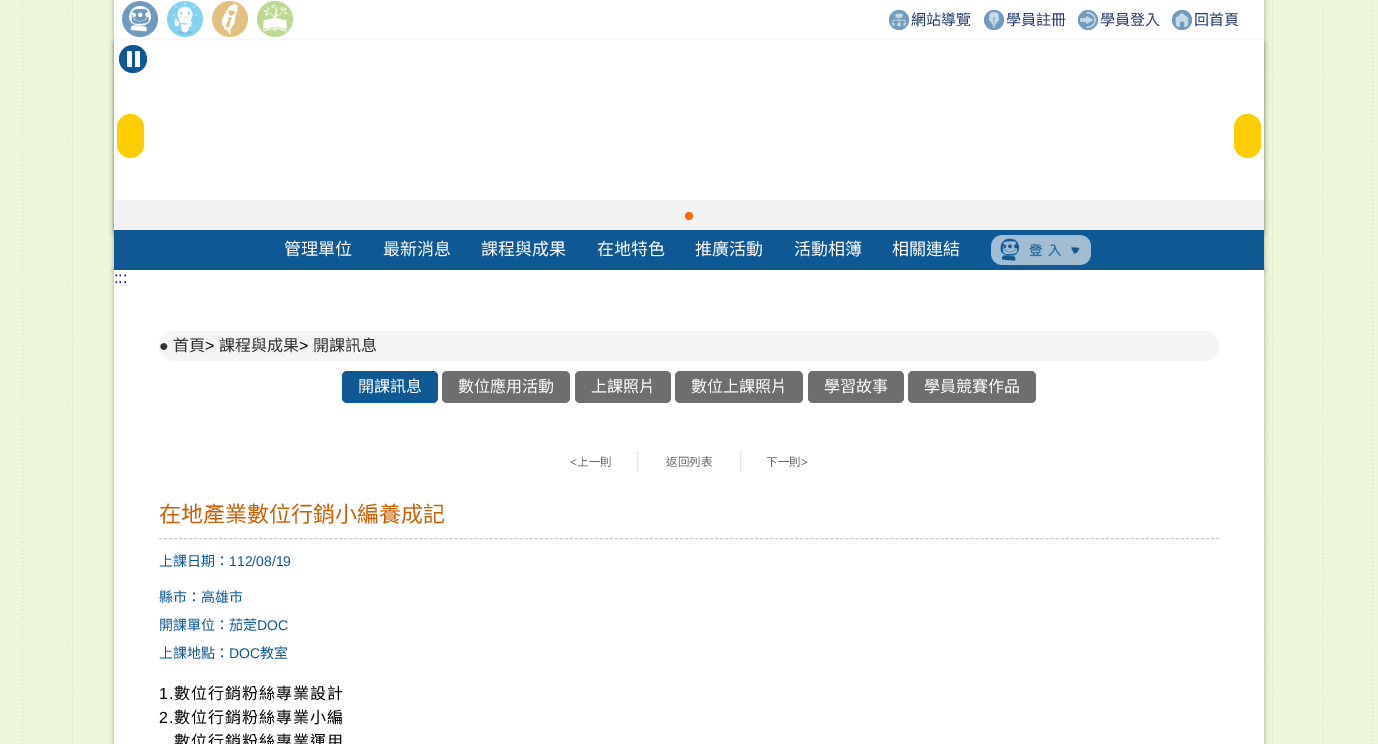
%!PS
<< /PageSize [1378 744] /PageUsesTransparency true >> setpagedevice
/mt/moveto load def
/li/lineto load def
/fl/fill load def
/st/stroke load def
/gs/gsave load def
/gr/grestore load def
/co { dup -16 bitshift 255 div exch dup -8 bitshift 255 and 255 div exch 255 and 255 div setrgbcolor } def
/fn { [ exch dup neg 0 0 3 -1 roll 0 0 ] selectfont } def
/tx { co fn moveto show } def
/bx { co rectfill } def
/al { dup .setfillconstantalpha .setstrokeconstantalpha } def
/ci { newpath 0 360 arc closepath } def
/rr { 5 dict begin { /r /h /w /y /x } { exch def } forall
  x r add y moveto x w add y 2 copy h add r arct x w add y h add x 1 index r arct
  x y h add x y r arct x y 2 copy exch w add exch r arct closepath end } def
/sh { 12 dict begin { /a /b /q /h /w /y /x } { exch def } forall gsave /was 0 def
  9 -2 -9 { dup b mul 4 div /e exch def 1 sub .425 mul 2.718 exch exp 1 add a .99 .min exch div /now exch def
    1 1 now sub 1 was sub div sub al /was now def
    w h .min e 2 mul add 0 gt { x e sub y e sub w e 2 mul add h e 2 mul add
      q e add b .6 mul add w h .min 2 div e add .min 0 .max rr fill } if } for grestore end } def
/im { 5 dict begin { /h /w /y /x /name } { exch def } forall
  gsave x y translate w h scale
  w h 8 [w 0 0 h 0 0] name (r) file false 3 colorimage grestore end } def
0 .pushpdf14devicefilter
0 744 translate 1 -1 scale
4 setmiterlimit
0 0 1378 744 16#FFFFFF bx
(media/1.raw) 0 0 1378 744 im
16#000000 co
114 0 1150 270 0 2.5 .3 sh
114 0 1150 40 16#FFFFFF bx
(media/2.raw) 122 1 36 36 im
(media/3.raw) 167 1 36 36 im
(media/4.raw) 212 1 36 36 im
(media/5.raw) 257 1 36 36 im
16#6E9BBE co
899 20 10 ci fl
(media/6.raw) 891 13 16 14 im
994 20 10 ci fl
(media/7.raw) 988 12 12 16 im
1088 20 10 ci fl
(media/8.raw) 1080 12 16 16 im
1182 20 10 ci fl
(media/9.raw) 1175 13 14 14 im
16#000000 co
114 43 1150 190 0 2.5 .3 sh
114 200 1150 30 16#F2F2F2 bx
114 40 1150 160 16#FFFFFF bx
16#FFCC00 co
117 114 27 44 13.5 rr fl
1234 114 27 44 13.5 rr fl
16#FF6600 co
689 216 4 ci fl
16#0E5993 co
133 59 14 ci fl
gs
125 51 16 16 rectclip
16#FFFFFF co
127 51 5 17 1.5 rr fl
135 51 5 17 1.5 rr fl
gr
16#000000 co
114 270 1150 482 0 2.5 .3 sh
114 230 1150 40 16#0E5993 bx
(media/10.raw) 991 235 100 30 im
114 270 1150 474 16#FFFFFF bx
16#F4F4F4 co
159 331 1060 30 15 rr fl
16#0E5993 co
342 371 96 32 5 rr fl
16#6E6E6E co
442 371 128 32 5 rr fl
575 371 96 32 5 rr fl
675 371 128 32 5 rr fl
808 371 96 32 5 rr fl
908 371 128 32 5 rr fl
16#CCCCCC co
[1 1] 0 setdash
637.5 452 mt 637.5 472 li st
740.5 452 mt 740.5 472 li st
[3 2.01] 0 setdash
159 538.5 mt 1219 538.5 li st
(網站導覽) 911 25 /NotoSansCJKTC-Regular 15 16#223B6B tx
(學員註冊) 1006 25 /NotoSansCJKTC-Regular 15 16#223B6B tx
(學員登入) 1100 25 /NotoSansCJKTC-Regular 15 16#223B6B tx
(回首頁) 1194 25 /NotoSansCJKTC-Regular 15 16#223B6B tx
(管理單位) 284 255 /NotoSansCJKTC-Regular 17 16#FFFFFF tx
(最新消息) 383 255 /NotoSansCJKTC-Regular 17 16#FFFFFF tx
(課程與成果) 481 255 /NotoSansCJKTC-Regular 17 16#FFFFFF tx
(在地特色) 597 255 /NotoSansCJKTC-Regular 17 16#FFFFFF tx
(推廣活動) 695 255 /NotoSansCJKTC-Regular 17 16#FFFFFF tx
(活動相簿) 794 255 /NotoSansCJKTC-Regular 17 16#FFFFFF tx
(相關連結) 892 255 /NotoSansCJKTC-Regular 17 16#FFFFFF tx
(:::) 114 283 /LiberationSans-Regular 16 16#0000EE tx
(●) 159 351 /LiberationSans-Regular 16 16#333333 tx
(首頁) 173 351 /NotoSansCJKTC-Regular 16 16#333333 tx
(>) 205 351 /LiberationSans-Regular 16 16#000000 tx
(課程與成果) 219 351 /NotoSansCJKTC-Regular 16 16#333333 tx
(>) 299 351 /LiberationSans-Regular 16 16#000000 tx
(開課訊息) 313 351 /NotoSansCJKTC-Regular 16 16#333333 tx
(開課訊息) 358 392 /NotoSansCJKTC-Regular 16 16#FFFFFF tx
(數位應用活動) 458 392 /NotoSansCJKTC-Regular 16 16#FFFFFF tx
(上課照片) 591 392 /NotoSansCJKTC-Regular 16 16#FFFFFF tx
(數位上課照片) 691 392 /NotoSansCJKTC-Regular 16 16#FFFFFF tx
(學習故事) 824 392 /NotoSansCJKTC-Regular 16 16#FFFFFF tx
(學員競賽作品) 924 392 /NotoSansCJKTC-Regular 16 16#FFFFFF tx
(<) 570 466 /LiberationSans-Regular 11.5 16#666666 tx
(上一則) 577 466 /NotoSansCJKTC-Regular 11.5 16#666666 tx
(返回列表) 666 466 /NotoSansCJKTC-Regular 11.5 16#666666 tx
(下一則) 766 466 /NotoSansCJKTC-Regular 11.5 16#666666 tx
(>) 801 466 /LiberationSans-Regular 11.5 16#666666 tx
(在地產業數位行銷小編養成記) 159 522 /NotoSansCJKTC-Regular 22 16#CA5F04 tx
(上課日期：) 159 566 /NotoSansCJKTC-Regular 14 16#0E5993 tx
(112/08/19) 229 566 /LiberationSans-Regular 14 16#0E5993 tx
(縣市：高雄市) 159 602 /NotoSansCJKTC-Regular 14 16#0E5993 tx
(開課單位：茄萣) 159 630 /NotoSansCJKTC-Regular 14 16#0E5993 tx
(DOC) 257 630 /LiberationSans-Regular 14 16#0E5993 tx
(上課地點：) 159 658 /NotoSansCJKTC-Regular 14 16#0E5993 tx
(DOC) 229 658 /LiberationSans-Regular 14 16#0E5993 tx
(教室) 260 658 /NotoSansCJKTC-Regular 14 16#0E5993 tx
/LiberationSans-Regular 16 fn
16#000000 co
159 699 mt 1 0 (1.) ashow
/NotoSansCJKTC-Regular 16 fn
174 699 mt 1 0 (數位行銷粉絲專業設計) ashow
/LiberationSans-Regular 16 fn
159 723 mt 1 0 (2.) ashow
/NotoSansCJKTC-Regular 16 fn
174 723 mt 1 0 (數位行銷粉絲專業小編) ashow
174 747 mt 1 0 (數位行銷粉絲專業運用) ashow
.poppdf14devicefilter showpage
